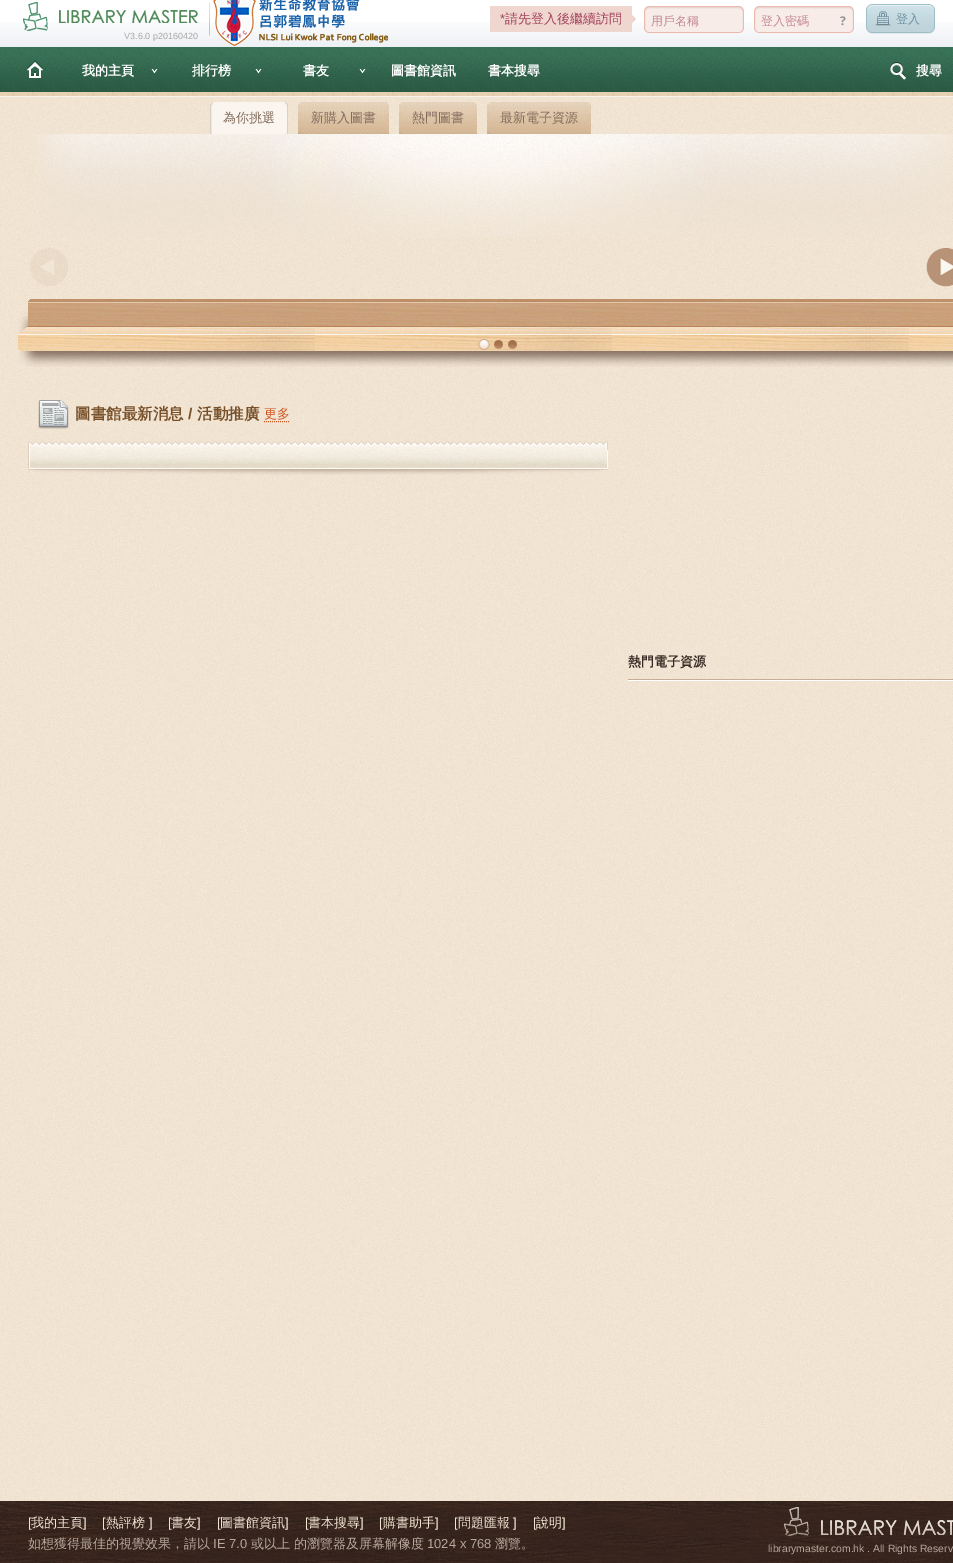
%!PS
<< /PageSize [953 1563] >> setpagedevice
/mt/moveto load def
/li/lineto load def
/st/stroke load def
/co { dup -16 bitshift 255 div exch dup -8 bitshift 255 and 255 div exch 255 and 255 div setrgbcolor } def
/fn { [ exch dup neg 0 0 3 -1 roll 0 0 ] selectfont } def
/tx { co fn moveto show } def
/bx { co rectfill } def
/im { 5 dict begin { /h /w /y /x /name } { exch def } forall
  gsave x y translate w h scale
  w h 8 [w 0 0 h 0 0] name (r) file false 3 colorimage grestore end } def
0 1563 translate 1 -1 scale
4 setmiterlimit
0 0 953 1563 16#FFFFFF bx
(media/1.raw) 0 22 953 25 im
(media/2.raw) 632 15 4 9 im
490 6 142 26 16#EFD7D0 bx
(media/3.raw) 644 6 100 27 im
(media/4.raw) 754 6 100 27 im
(media/5.raw) 866 4 69 30 im
(media/6.raw) 23 2 187 34 im
(media/7.raw) 213 0 176 47 im
(media/8.raw) 0 47 953 50 im
(media/9.raw) 27 60 16 18 im
(media/10.raw) 151 69 7 5 im
(media/11.raw) 255 69 7 5 im
(media/12.raw) 359 69 7 5 im
(media/13.raw) 890 62 16 18 im
(media/14.raw) 0 97 953 1404 im
(media/15.raw) 210 102 3 32 im
213 102 72 32 16#FAF5EF bx
(media/16.raw) 285 102 3 32 im
(media/17.raw) 298 102 3 32 im
(media/18.raw) 301 102 85 32 im
(media/19.raw) 386 102 3 32 im
(media/20.raw) 399 102 3 32 im
(media/21.raw) 402 102 72 32 im
(media/22.raw) 474 102 3 32 im
(media/23.raw) 487 102 3 32 im
(media/24.raw) 490 102 98 32 im
(media/25.raw) 588 102 3 32 im
(media/26.raw) 18 299 935 68 im
(media/27.raw) 36 134 917 104 im
(media/28.raw) 30 248 38 38 im
(media/29.raw) 926 248 27 39 im
(media/30.raw) 478 339 12 11 im
(media/31.raw) 494 340 9 9 im
(media/32.raw) 508 340 9 9 im
(media/33.raw) 38 400 31 29 im
16#CE541E co
[1 1] 0 setdash
264 421.5 mt 290 421.5 li st
(media/34.raw) 28 441 580 9 im
(media/35.raw) 28 450 580 25 im
628 679 325 1 16#C6AD98 bx
628 680 325 1 16#FFFFFF bx
(media/36.raw) 0 1501 953 62 im
(media/37.raw) 784 1507 169 29 im
(*) 500 23 /LiberationSans-Regular 13 16#A5435C tx
(請先登入後繼續訪問) 505 23 /WenQuanYiZenHei-Medium 13 16#A5435C tx
(用戶名稱) 651 25 /WenQuanYiZenHei-Medium 12 16#C68794 tx
(登入密碼) 761 25 /WenQuanYiZenHei-Medium 12 16#C68794 tx
(?) 840 25 /NotoSans-Bold 12 16#929292 tx
(登入) 896 23 /WenQuanYiZenHei-Medium 12 16#6D91A0 tx
(V3.6.0 p20160420) 124 39 /LiberationSans-Regular 9 16#AAAAAA tx
(我的主頁) 82 75 /WenQuanYiZenHei-Bold 13 16#FFFFFF tx
(排行榜) 192 75 /WenQuanYiZenHei-Bold 13 16#FFFFFF tx
(書友) 303 75 /WenQuanYiZenHei-Bold 13 16#FFFFFF tx
(圖書館資訊) 391 75 /WenQuanYiZenHei-Bold 13 16#FFFFFF tx
(書本搜尋) 488 75 /WenQuanYiZenHei-Bold 13 16#FFFFFF tx
(搜尋) 916 75 /WenQuanYiZenHei-Bold 13 16#FFFFFF tx
(為你挑選) 223 122 /WenQuanYiZenHei-Medium 13 16#836B5C tx
(新購入圖書) 311 122 /WenQuanYiZenHei-Medium 13 16#836B5C tx
(熱門圖書) 412 122 /WenQuanYiZenHei-Medium 13 16#836B5C tx
(最新電子資源) 500 122 /WenQuanYiZenHei-Medium 13 16#836B5C tx
(圖書館最新消息) 75 419 /WenQuanYiZenHei-Bold 15.5 16#78502A tx
(/) 188 419 /LiberationSans-Bold 15.5 16#78502A tx
(活動推廣) 197 419 /WenQuanYiZenHei-Bold 15.5 16#78502A tx
(更多) 264 418 /WenQuanYiZenHei-Medium 13 16#CE541E tx
(熱門電子資源) 628 666 /WenQuanYiZenHei-Bold 13 16#362923 tx
([) 28 1527 /LiberationSans-Regular 13 16#F0E4D2 tx
(我的主頁) 31 1527 /WenQuanYiZenHei-Medium 13 16#F0E4D2 tx
(]) 83 1527 /LiberationSans-Regular 13 16#F0E4D2 tx
([) 102 1527 /LiberationSans-Regular 13 16#F0E4D2 tx
(熱評榜) 106 1527 /WenQuanYiZenHei-Medium 13 16#F0E4D2 tx
(]) 149 1527 /LiberationSans-Regular 13 16#F0E4D2 tx
([) 168 1527 /LiberationSans-Regular 13 16#F0E4D2 tx
(書友) 171 1527 /WenQuanYiZenHei-Medium 13 16#F0E4D2 tx
(]) 197 1527 /LiberationSans-Regular 13 16#F0E4D2 tx
([) 217 1527 /LiberationSans-Regular 13 16#F0E4D2 tx
(圖書館資訊) 220 1527 /WenQuanYiZenHei-Medium 13 16#F0E4D2 tx
(]) 285 1527 /LiberationSans-Regular 13 16#F0E4D2 tx
([) 305 1527 /LiberationSans-Regular 13 16#F0E4D2 tx
(書本搜尋) 308 1527 /WenQuanYiZenHei-Medium 13 16#F0E4D2 tx
(]) 360 1527 /LiberationSans-Regular 13 16#F0E4D2 tx
([) 379 1527 /LiberationSans-Regular 13 16#F0E4D2 tx
(購書助手) 383 1527 /WenQuanYiZenHei-Medium 13 16#F0E4D2 tx
(]) 435 1527 /LiberationSans-Regular 13 16#F0E4D2 tx
([) 454 1527 /LiberationSans-Regular 13 16#F0E4D2 tx
(問題匯報) 458 1527 /WenQuanYiZenHei-Medium 13 16#F0E4D2 tx
(]) 513 1527 /LiberationSans-Regular 13 16#F0E4D2 tx
([) 533 1527 /LiberationSans-Regular 13 16#F0E4D2 tx
(說明) 536 1527 /WenQuanYiZenHei-Medium 13 16#F0E4D2 tx
(]) 562 1527 /LiberationSans-Regular 13 16#F0E4D2 tx
(如想獲得最佳的視覺效果，請以) 28 1548 /WenQuanYiZenHei-Medium 13 16#B7A89B tx
(IE 7.0) 213 1548 /LiberationSans-Regular 13 16#B7A89B tx
(或以上 的瀏覽器及屏幕解像度) 251 1548 /WenQuanYiZenHei-Medium 13 16#B7A89B tx
(1024 x 768) 427 1548 /LiberationSans-Regular 13 16#B7A89B tx
(瀏覽。) 495 1548 /WenQuanYiZenHei-Medium 13 16#B7A89B tx
(librarymaster.com.hk . All Rights Reserv) 768 1552 /LiberationSans-Regular 10.4 16#B7A89B tx
showpage
